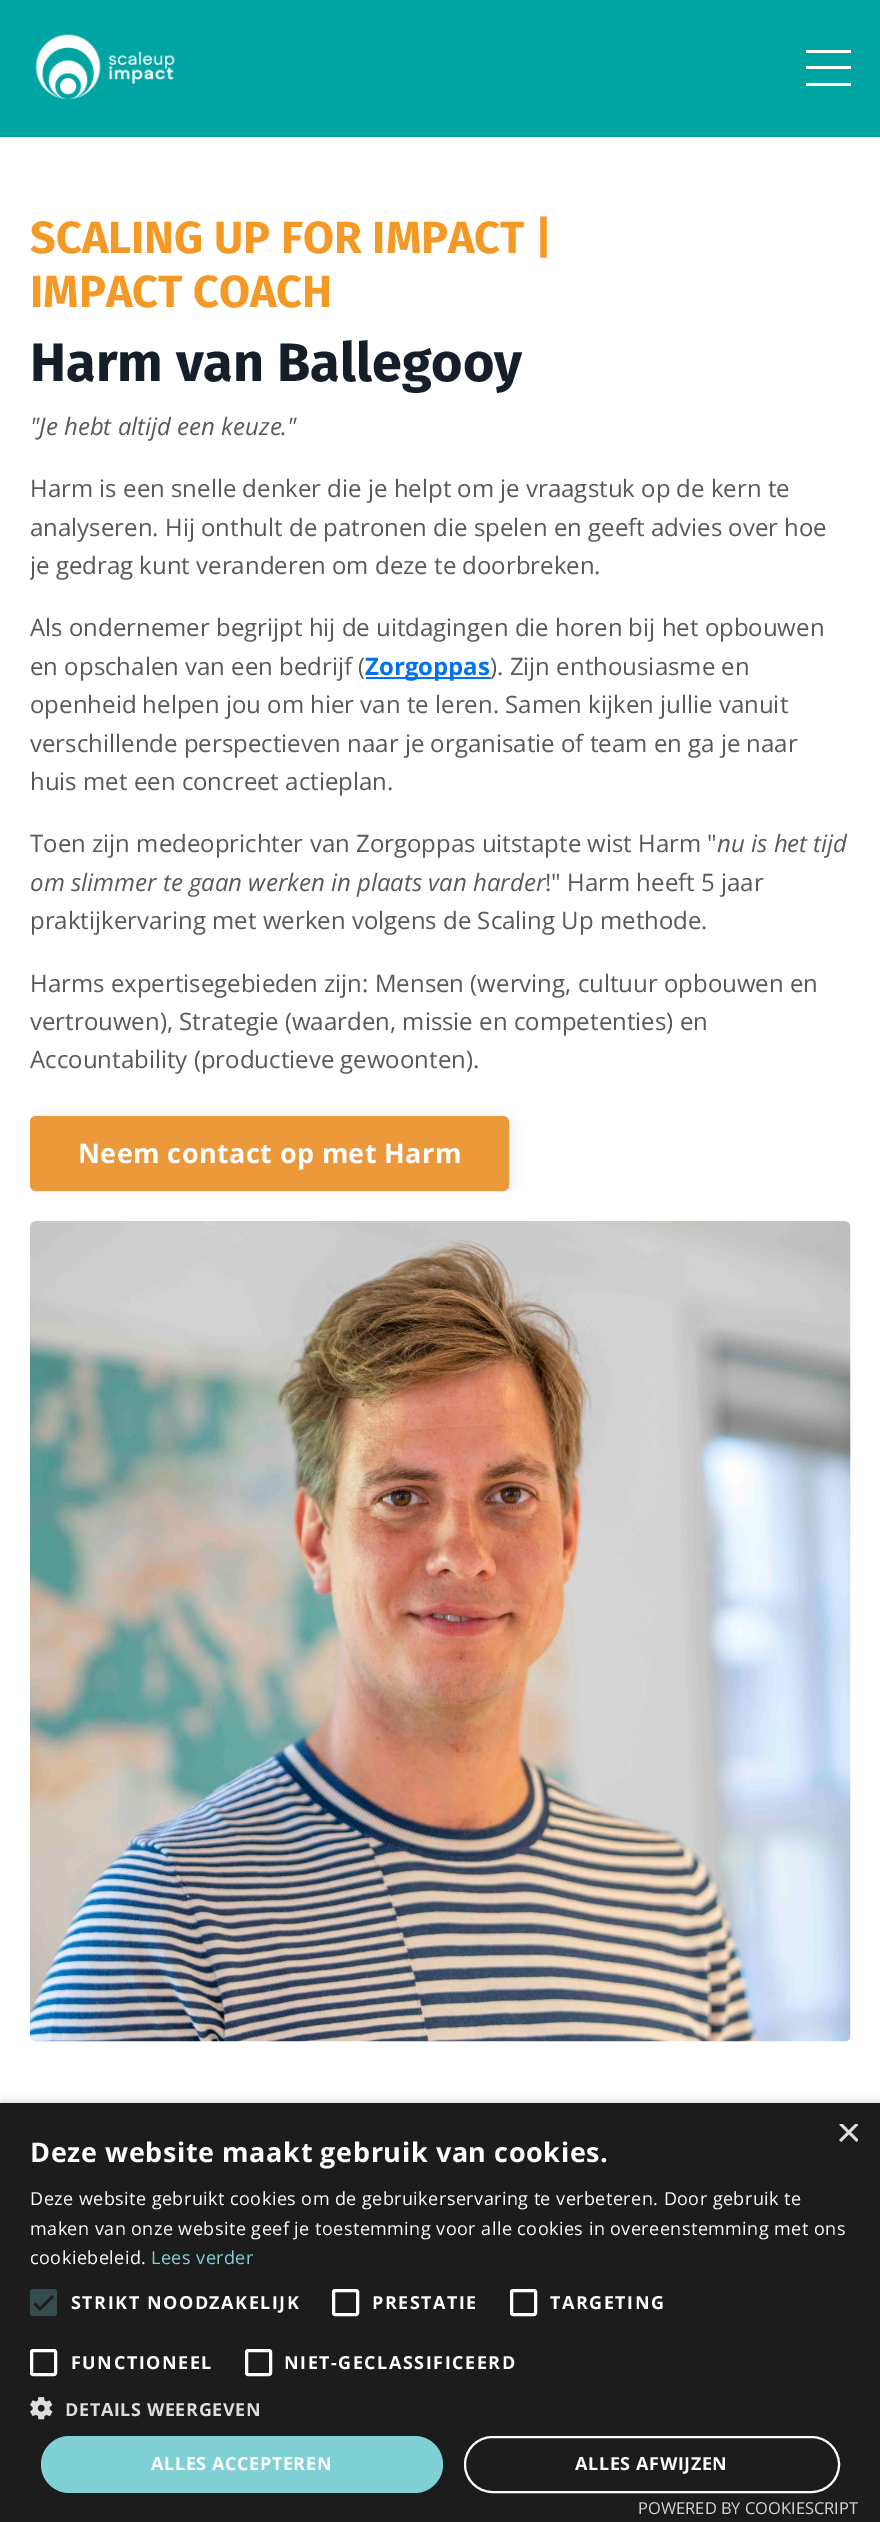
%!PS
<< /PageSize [880 2522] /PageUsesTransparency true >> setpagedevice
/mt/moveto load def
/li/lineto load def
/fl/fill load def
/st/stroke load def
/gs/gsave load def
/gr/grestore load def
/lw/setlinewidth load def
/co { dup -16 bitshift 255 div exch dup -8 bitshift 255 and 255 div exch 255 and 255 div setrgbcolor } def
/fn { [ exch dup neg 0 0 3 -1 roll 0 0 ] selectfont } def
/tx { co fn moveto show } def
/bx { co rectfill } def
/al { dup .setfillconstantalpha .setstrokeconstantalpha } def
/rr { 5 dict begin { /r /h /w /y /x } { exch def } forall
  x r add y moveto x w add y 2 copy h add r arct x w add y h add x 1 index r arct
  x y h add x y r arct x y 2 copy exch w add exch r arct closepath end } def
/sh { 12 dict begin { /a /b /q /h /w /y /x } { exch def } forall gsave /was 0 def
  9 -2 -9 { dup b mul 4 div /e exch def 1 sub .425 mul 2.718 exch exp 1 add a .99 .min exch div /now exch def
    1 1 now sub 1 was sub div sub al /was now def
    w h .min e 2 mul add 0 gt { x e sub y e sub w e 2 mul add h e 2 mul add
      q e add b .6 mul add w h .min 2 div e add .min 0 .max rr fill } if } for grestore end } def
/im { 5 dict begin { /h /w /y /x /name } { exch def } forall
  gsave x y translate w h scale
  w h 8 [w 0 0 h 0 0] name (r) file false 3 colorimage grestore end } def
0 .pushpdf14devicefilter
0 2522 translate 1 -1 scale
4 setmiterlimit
0 0 880 2522 16#FFFFFF bx
0 0 880 137 16#00A5A3 bx
(media/1.raw) 35 34 140 66 im
806 50 45 3 16#FFFFFF bx
806 66 45 3 16#FFFFFF bx
806 83 45 3 16#FFFFFF bx
366 677 125 2 16#0072EF bx
gs
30 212 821 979 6 rr clip newpath
16#000000 co
30 1119 479 75 6 7.5 .1 sh
gr
16#EB993B co
31.5 1117.5 476 72 4.5 rr gs fl gr
3 lw
st
(media/2.raw) 30 1221 821 821 im
16#000000 co
2 2106 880 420 0 6 .35 sh
0 2103 880 419 16#1C1C1C bx
16#364B4C co
30 2289 27 27 3 rr fl
16#1C1C1C co
2.7 lw
34.5 2303.5 mt 40 2309 li 53 2296 li st
16#FFFFFF co
3 lw
333.5 2290.5 24 24 1.5 rr st
511.5 2290.5 24 24 1.5 rr st
31.5 2350.5 24 24 1.5 rr st
246.5 2350.5 24 24 1.5 rr st
(media/3.raw) 30 2397 23 23 im
16#80D1D6 co
41 2436 402 57 28.5 rr fl
16#FFFFFF co
2 lw
465 2437 374 55 27.5 rr st
(SCALING UP FOR IMPACT |) 30 253 /FiraSans-Bold 45 16#F59926 tx
(IMPACT COACH) 30 307 /FiraSans-Bold 45 16#F59926 tx
(Harm van Ballegooy) 30 381 /FiraSans-Bold 54 16#161E2A tx
("Je hebt altijd een keuze.") 30 435 /OpenSans-Italic 24 16#595959 tx
(Harm is een snelle denker die je helpt om je vraagstuk op de kern te) 30 497 /OpenSans-Regular 24 16#595959 tx
(analyseren. Hij onthult de patronen die spelen en geeft advies over hoe) 30 536 /OpenSans-Regular 24 16#595959 tx
gs
30 212 821 979 6 rr clip newpath
(je gedrag kunt veranderen om deze te doorbreken.) 30 574 /OpenSans-Regular 24 16#595959 tx
gr
(Als ondernemer begrijpt hij de uitdagingen die horen bij het opbouwen) 30 636 /OpenSans-Regular 24 16#595959 tx
(en opschalen van een bedrijf \() 30 675 /OpenSans-Regular 24 16#595959 tx
(Zorgoppas) 365 675 /OpenSans-Bold 24 16#0072EF tx
(\). Zijn enthousiasme en) 490 675 /OpenSans-Regular 24 16#595959 tx
(openheid helpen jou om hier van te leren. Samen kijken jullie vanuit) 30 713 /OpenSans-Regular 24 16#595959 tx
(verschillende perspectieven naar je organisatie of team en ga je naar) 30 752 /OpenSans-Regular 24 16#595959 tx
(huis met een concreet actieplan.) 30 790 /OpenSans-Regular 24 16#595959 tx
(Toen zijn medeoprichter van Zorgoppas uitstapte wist Harm ") 30 852 /OpenSans-Regular 24 16#595959 tx
(nu is het tijd) 717 852 /OpenSans-Italic 24 16#595959 tx
(om slimmer te gaan werken in plaats van harder) 30 891 /OpenSans-Italic 24 16#595959 tx
(!" Harm heeft 5 jaar) 545 891 /OpenSans-Regular 24 16#595959 tx
(praktijkervaring met werken volgens de Scaling Up methode.) 30 929 /OpenSans-Regular 24 16#595959 tx
(Harms expertisegebieden zijn: Mensen \(werving, cultuur opbouwen en) 30 992 /OpenSans-Regular 24 16#595959 tx
(vertrouwen\), Strategie \(waarden, missie en competenties\) en) 30 1030 /OpenSans-Regular 24 16#595959 tx
(Accountability \(productieve gewoonten\).) 30 1068 /OpenSans-Regular 24 16#595959 tx
/OpenSans-Bold 27 fn
16#FFFFFF co
78 1163 mt .4 0 (Neem contact op met Harm) ashow
gs
836 2124 22 23 rectclip
(×) 836 2147 /LiberationSans-Regular 44 16#DDDDDD tx
gr
30 2162 mt .6 0 (Deze website maakt gebruik van cookies.) ashow
/OpenSans-Regular 18 fn
30 2205 mt .45 0 (Deze website gebruikt cookies om de gebruikerservaring te verbeteren. Door gebruik te) ashow
30 2235 mt .45 0 (maken van onze website geef je toestemming voor alle cookies in overeenstemming met ons) ashow
30 2264 mt .45 0 (cookiebeleid.) ashow
16#80D1D6 co
151 2264 mt .45 0 (Lees verder) ashow
/OpenSans-Bold 18 fn
16#FFFFFF co
71 2309 mt 1.5 0 (STRIKT NOODZAKELIJK) ashow
372 2309 mt 1.5 0 (PRESTATIE) ashow
550 2309 mt 1.5 0 (TARGETING) ashow
71 2369 mt 1.5 0 (FUNCTIONEEL) ashow
284 2369 mt 1.5 0 (NIET-GECLASSIFICEERD) ashow
16#DDDDDD co
65 2416 mt .6 0 (DETAILS WEERGEVEN) ashow
16#FFFFFF co
151 2470 mt .6 0 (ALLES ACCEPTEREN) ashow
575 2470 mt .6 0 (ALLES AFWIJZEN) ashow
(POWERED BY COOKIESCRIPT) 638 2514 /OpenSans-Regular 16.5 16#D2D2D2 tx
.poppdf14devicefilter showpage
